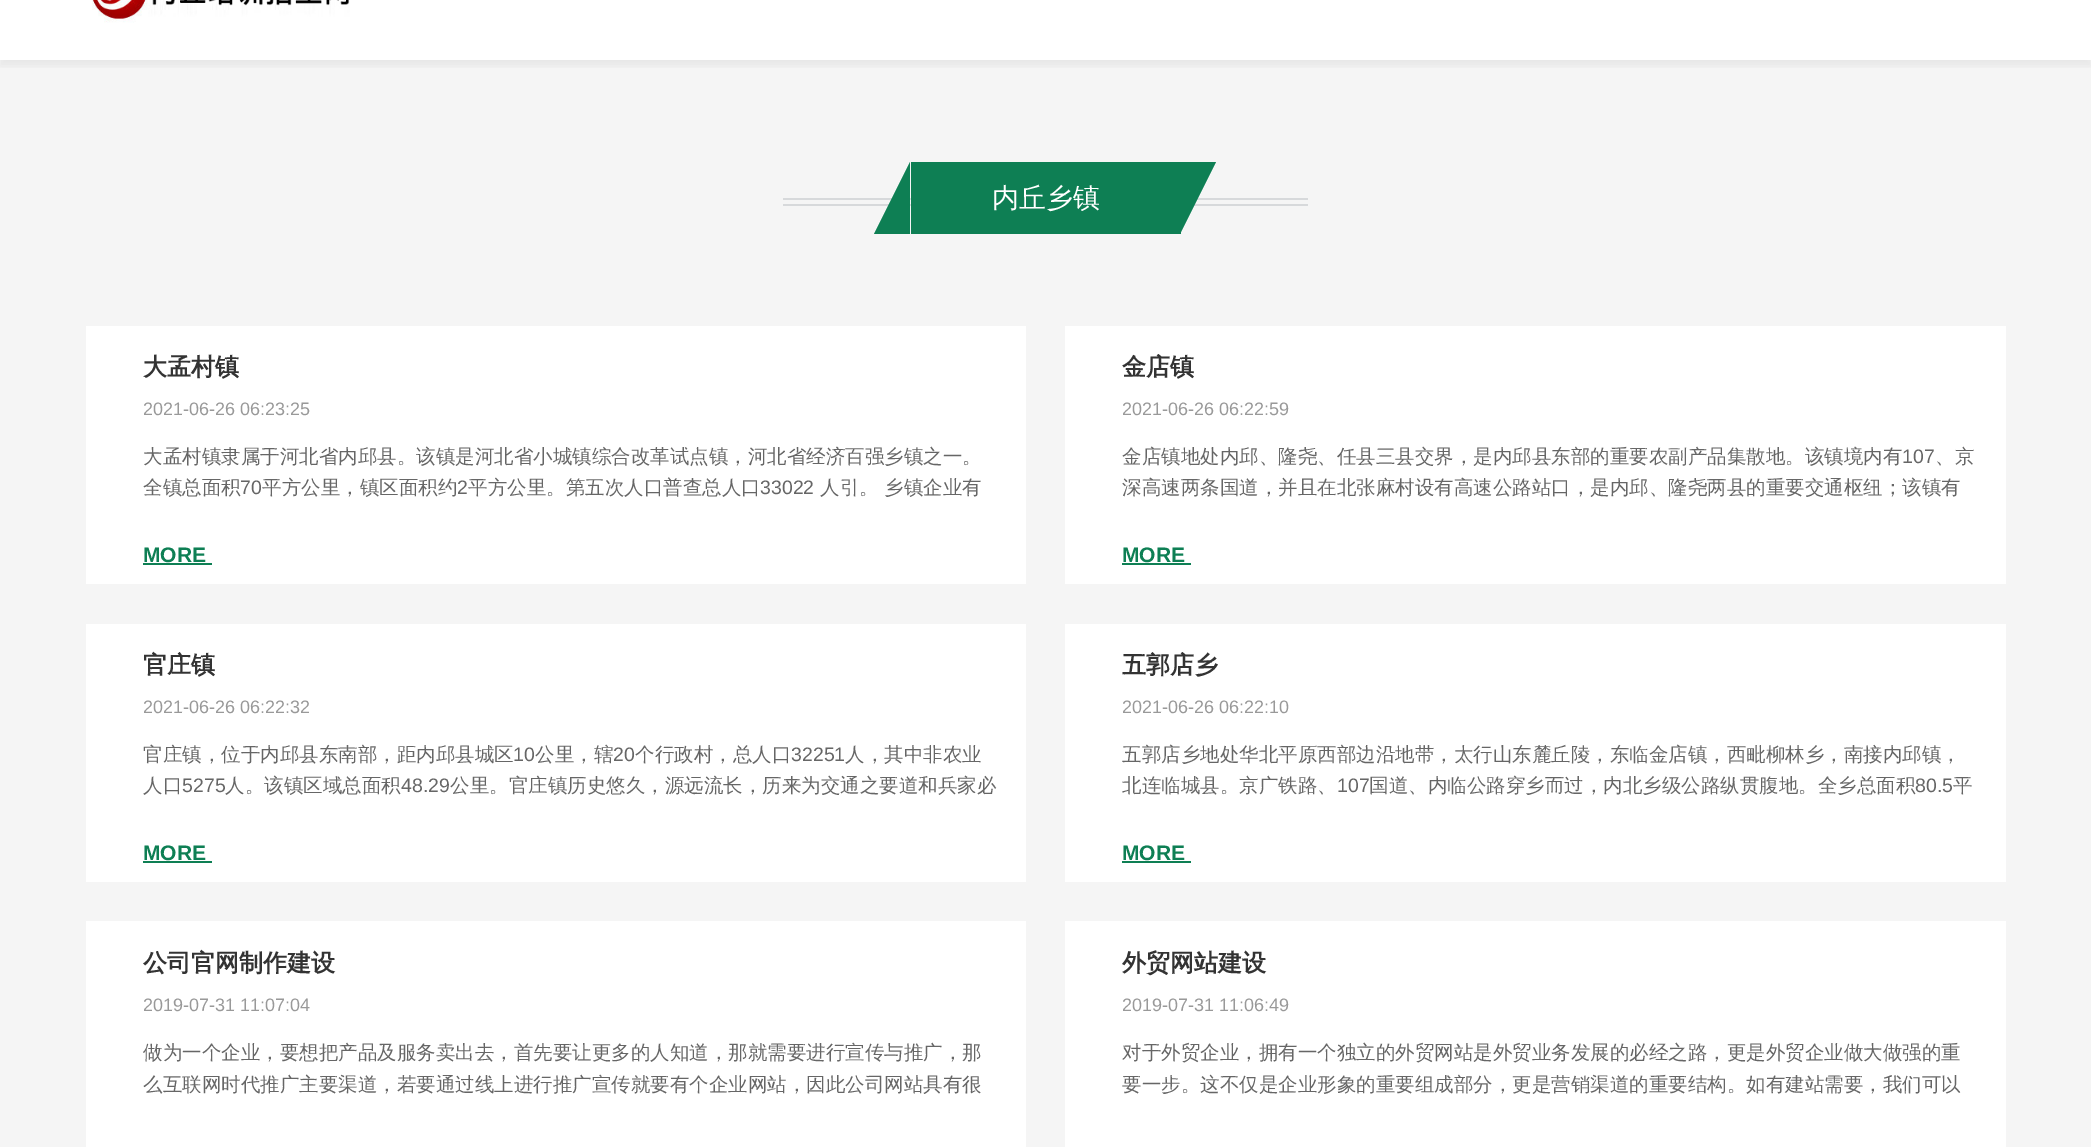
%!PS
<< /PageSize [2091 1147] /PageUsesTransparency true >> setpagedevice
/mt/moveto load def
/li/lineto load def
/cp/closepath load def
/fl/fill load def
/gs/gsave load def
/gr/grestore load def
/co { dup -16 bitshift 255 div exch dup -8 bitshift 255 and 255 div exch 255 and 255 div setrgbcolor } def
/fn { [ exch dup neg 0 0 3 -1 roll 0 0 ] selectfont } def
/tx { co fn moveto show } def
/bx { co rectfill } def
/al { dup .setfillconstantalpha .setstrokeconstantalpha } def
/rr { 5 dict begin { /r /h /w /y /x } { exch def } forall
  x r add y moveto x w add y 2 copy h add r arct x w add y h add x 1 index r arct
  x y h add x y r arct x y 2 copy exch w add exch r arct closepath end } def
/sh { 12 dict begin { /a /b /q /h /w /y /x } { exch def } forall gsave /was 0 def
  9 -2 -9 { dup b mul 4 div /e exch def 1 sub .425 mul 2.718 exch exp 1 add a .99 .min exch div /now exch def
    1 1 now sub 1 was sub div sub al /was now def
    w h .min e 2 mul add 0 gt { x e sub y e sub w e 2 mul add h e 2 mul add
      q e add b .6 mul add w h .min 2 div e add .min 0 .max rr fill } if } for grestore end } def
/im { 5 dict begin { /h /w /y /x /name } { exch def } forall
  gsave x y translate w h scale
  w h 8 [w 0 0 h 0 0] name (r) file false 3 colorimage grestore end } def
0 .pushpdf14devicefilter
0 1147 translate 1 -1 scale
4 setmiterlimit
0 0 2091 1147 16#FFFFFF bx
0 60 2091 1087 16#F5F5F5 bx
gs
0 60 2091 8 rectclip
16#000000 co
0 -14 2091 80 0 4.5 .06 sh
gr
(media/1.raw) 92 0 258 23 im
783 198 525 2 16#D7D9DB bx
783 204 525 2 16#D7D9DB bx
911 162 270 72 16#0E7F54 bx
910 234 mt 874 234 li 910 162 li cp fl
1180 162 mt 1216 162 li 1180 234 li cp fl
86 326 940 258 16#FFFFFF bx
143 563 69 2 16#0E7F54 bx
1065 326 941 258 16#FFFFFF bx
1122 563 69 2 16#0E7F54 bx
86 624 940 258 16#FFFFFF bx
143 861 69 2 16#0E7F54 bx
1065 624 941 258 16#FFFFFF bx
1122 861 69 2 16#0E7F54 bx
86 921 940 226 16#FFFFFF bx
1065 921 941 226 16#FFFFFF bx
(内丘乡镇) 992 207 /WenQuanYiZenHei-Medium 27 16#FFFFFF tx
(大孟村镇) 143 375 /WenQuanYiZenHei-Bold 24 16#333333 tx
(2021-06-26 06:23:25) 143 415 /LiberationSans-Regular 18 16#999999 tx
(大孟村镇隶属于河北省内邱县。该镇是河北省小城镇综合改革试点镇，河北省经济百强乡镇之一。) 143 463 /WenQuanYiZenHei-Medium 19.5 16#666666 tx
(全镇总面积) 143 494 /WenQuanYiZenHei-Medium 19.5 16#666666 tx
(70) 240 494 /LiberationSans-Regular 19.5 16#666666 tx
(平方公里，镇区面积约) 262 494 /WenQuanYiZenHei-Medium 19.5 16#666666 tx
(2) 457 494 /LiberationSans-Regular 19.5 16#666666 tx
(平方公里。第五次人口普查总人口) 468 494 /WenQuanYiZenHei-Medium 19.5 16#666666 tx
(33022) 760 494 /LiberationSans-Regular 19.5 16#666666 tx
(人引。 乡镇企业有) 820 494 /WenQuanYiZenHei-Medium 19.5 16#666666 tx
(MORE) 143 562 /LiberationSans-Bold 21 16#0E7F54 tx
(金店镇) 1122 375 /WenQuanYiZenHei-Bold 24 16#333333 tx
(2021-06-26 06:22:59) 1122 415 /LiberationSans-Regular 18 16#999999 tx
(金店镇地处内邱、隆尧、任县三县交界，是内邱县东部的重要农副产品集散地。该镇境内有) 1122 463 /WenQuanYiZenHei-Medium 19.5 16#666666 tx
(107) 1902 463 /LiberationSans-Regular 19.5 16#666666 tx
(、京) 1935 463 /WenQuanYiZenHei-Medium 19.5 16#666666 tx
(深高速两条国道，并且在北张麻村设有高速公路站口，是内邱、隆尧两县的重要交通枢纽；该镇有) 1122 494 /WenQuanYiZenHei-Medium 19.5 16#666666 tx
(MORE) 1122 562 /LiberationSans-Bold 21 16#0E7F54 tx
(官庄镇) 143 673 /WenQuanYiZenHei-Bold 24 16#333333 tx
(2021-06-26 06:22:32) 143 713 /LiberationSans-Regular 18 16#999999 tx
(官庄镇，位于内邱县东南部，距内邱县城区) 143 761 /WenQuanYiZenHei-Medium 19.5 16#666666 tx
(10) 513 761 /LiberationSans-Regular 19.5 16#666666 tx
(公里，辖) 535 761 /WenQuanYiZenHei-Medium 19.5 16#666666 tx
(20) 613 761 /LiberationSans-Regular 19.5 16#666666 tx
(个行政村，总人口) 635 761 /WenQuanYiZenHei-Medium 19.5 16#666666 tx
(32251) 791 761 /LiberationSans-Regular 19.5 16#666666 tx
(人，其中非农业) 845 761 /WenQuanYiZenHei-Medium 19.5 16#666666 tx
(人口) 143 792 /WenQuanYiZenHei-Medium 19.5 16#666666 tx
(5275) 182 792 /LiberationSans-Regular 19.5 16#666666 tx
(人。该镇区域总面积) 225 792 /WenQuanYiZenHei-Medium 19.5 16#666666 tx
(48.29) 401 792 /LiberationSans-Regular 19.5 16#666666 tx
(公里。官庄镇历史悠久，源远流长，历来为交通之要道和兵家必) 450 792 /WenQuanYiZenHei-Medium 19.5 16#666666 tx
(MORE) 143 860 /LiberationSans-Bold 21 16#0E7F54 tx
(五郭店乡) 1122 673 /WenQuanYiZenHei-Bold 24 16#333333 tx
(2021-06-26 06:22:10) 1122 713 /LiberationSans-Regular 18 16#999999 tx
(五郭店乡地处华北平原西部边沿地带，太行山东麓丘陵，东临金店镇，西毗柳林乡，南接内邱镇，) 1122 761 /WenQuanYiZenHei-Medium 19.5 16#666666 tx
(北连临城县。京广铁路、) 1122 792 /WenQuanYiZenHei-Medium 19.5 16#666666 tx
(107) 1337 792 /LiberationSans-Regular 19.5 16#666666 tx
(国道、内临公路穿乡而过，内北乡级公路纵贯腹地。全乡总面积) 1369 792 /WenQuanYiZenHei-Medium 19.5 16#666666 tx
(80.5) 1915 792 /LiberationSans-Regular 19.5 16#666666 tx
(平) 1953 792 /WenQuanYiZenHei-Medium 19.5 16#666666 tx
(MORE) 1122 860 /LiberationSans-Bold 21 16#0E7F54 tx
(公司官网制作建设) 143 971 /WenQuanYiZenHei-Bold 24 16#333333 tx
(2019-07-31 11:07:04) 143 1011 /LiberationSans-Regular 18 16#999999 tx
(做为一个企业，要想把产品及服务卖出去，首先要让更多的人知道，那就需要进行宣传与推广，那) 143 1059 /WenQuanYiZenHei-Medium 19.5 16#666666 tx
(么互联网时代推广主要渠道，若要通过线上进行推广宣传就要有个企业网站，因此公司网站具有很) 143 1091 /WenQuanYiZenHei-Medium 19.5 16#666666 tx
(外贸网站建设) 1122 971 /WenQuanYiZenHei-Bold 24 16#333333 tx
(2019-07-31 11:06:49) 1122 1011 /LiberationSans-Regular 18 16#999999 tx
(对于外贸企业，拥有一个独立的外贸网站是外贸业务发展的必经之路，更是外贸企业做大做强的重) 1122 1059 /WenQuanYiZenHei-Medium 19.5 16#666666 tx
(要一步。这不仅是企业形象的重要组成部分，更是营销渠道的重要结构。如有建站需要，我们可以) 1122 1091 /WenQuanYiZenHei-Medium 19.5 16#666666 tx
.poppdf14devicefilter showpage
